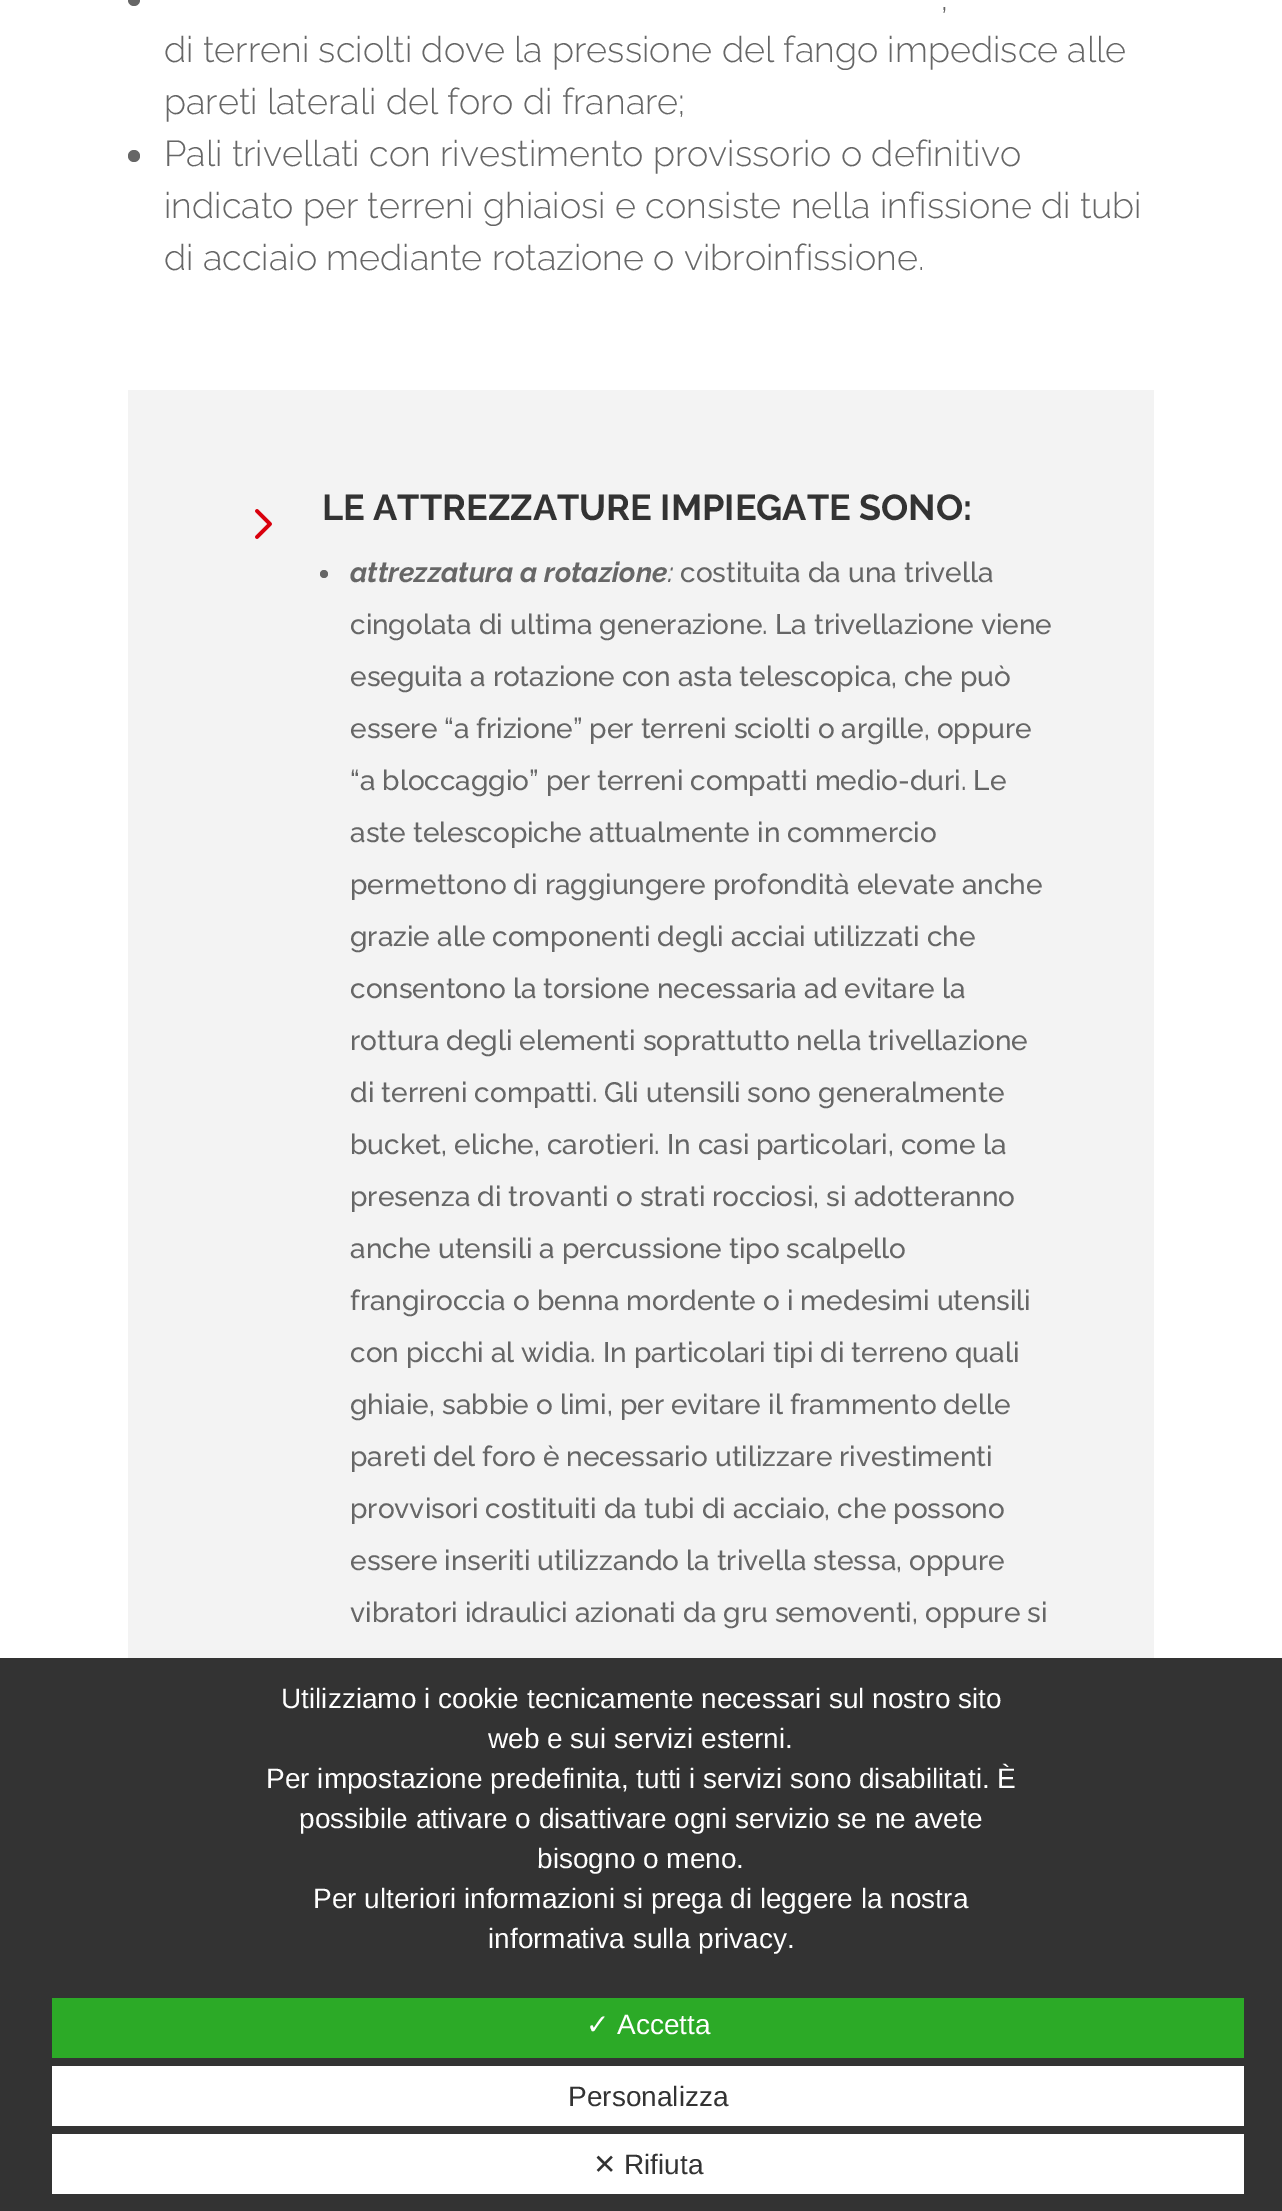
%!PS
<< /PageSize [1282 2211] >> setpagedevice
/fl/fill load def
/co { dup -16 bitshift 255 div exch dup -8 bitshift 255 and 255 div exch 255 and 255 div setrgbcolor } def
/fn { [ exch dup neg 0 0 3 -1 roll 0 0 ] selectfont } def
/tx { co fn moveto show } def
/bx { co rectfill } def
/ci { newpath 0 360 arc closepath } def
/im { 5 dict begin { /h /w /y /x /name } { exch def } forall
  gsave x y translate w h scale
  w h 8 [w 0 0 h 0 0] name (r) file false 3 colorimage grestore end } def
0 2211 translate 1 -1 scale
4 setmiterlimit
0 0 1282 2211 16#FFFFFF bx
16#666666 co
134 0 6 ci fl
134 156 6 ci fl
128 390 1026 1268 16#F3F3F3 bx
(media/1.raw) 255 509 17 30 im
16#666666 co
324 574 4 ci fl
0 1658 1282 553 16#333333 bx
52 1998 1192 60 16#2CAA27 bx
52 2066 1192 60 16#FFFFFF bx
52 2134 1192 60 16#FFFFFF bx
(,) 940 10 /Raleway-Light 36 16#666666 tx
(di terreni sciolti dove la pressione del fango impedisce alle) 164 62 /Raleway-Light 36 16#666666 tx
(pareti laterali del foro di franare;) 164 114 /Raleway-Light 36 16#666666 tx
(Pali trivellati con rivestimento provissorio o definitivo) 164 166 /Raleway-Light 36 16#666666 tx
(indicato per terreni ghiaiosi e consiste nella infissione di tubi) 164 218 /Raleway-Light 36 16#666666 tx
(di acciaio mediante rotazione o vibroinfissione.) 164 270 /Raleway-Light 36 16#666666 tx
(LE ATTREZZATURE IMPIEGATE SONO:) 322 520 /Raleway-Bold 36 16#333333 tx
(attrezzatura a rotazione) 350 582 /Raleway-BoldItalic 28 16#666666 tx
(:) 668 582 /Raleway-MediumItalic 28 16#666666 tx
(costituita da una trivella) 680 582 /Raleway-Medium 28 16#666666 tx
(cingolata di ultima generazione. La trivellazione viene) 350 634 /Raleway-Medium 28 16#666666 tx
(eseguita a rotazione con asta telescopica, che può) 350 686 /Raleway-Medium 28 16#666666 tx
(essere “a frizione” per terreni sciolti o argille, oppure) 350 738 /Raleway-Medium 28 16#666666 tx
(“a bloccaggio” per terreni compatti medio-duri. Le) 350 790 /Raleway-Medium 28 16#666666 tx
(aste telescopiche attualmente in commercio) 350 842 /Raleway-Medium 28 16#666666 tx
(permettono di raggiungere profondità elevate anche) 350 894 /Raleway-Medium 28 16#666666 tx
(grazie alle componenti degli acciai utilizzati che) 350 946 /Raleway-Medium 28 16#666666 tx
(consentono la torsione necessaria ad evitare la) 350 998 /Raleway-Medium 28 16#666666 tx
(rottura degli elementi soprattutto nella trivellazione) 350 1050 /Raleway-Medium 28 16#666666 tx
(di terreni compatti. Gli utensili sono generalmente) 350 1102 /Raleway-Medium 28 16#666666 tx
(bucket, eliche, carotieri. In casi particolari, come la) 350 1154 /Raleway-Medium 28 16#666666 tx
(presenza di trovanti o strati rocciosi, si adotteranno) 350 1206 /Raleway-Medium 28 16#666666 tx
(anche utensili a percussione tipo scalpello) 350 1258 /Raleway-Medium 28 16#666666 tx
(frangiroccia o benna mordente o i medesimi utensili) 350 1310 /Raleway-Medium 28 16#666666 tx
(con picchi al widia. In particolari tipi di terreno quali) 350 1362 /Raleway-Medium 28 16#666666 tx
(ghiaie, sabbie o limi, per evitare il frammento delle) 350 1414 /Raleway-Medium 28 16#666666 tx
(pareti del foro è necessario utilizzare rivestimenti) 350 1466 /Raleway-Medium 28 16#666666 tx
(provvisori costituiti da tubi di acciaio, che possono) 350 1518 /Raleway-Medium 28 16#666666 tx
(essere inseriti utilizzando la trivella stessa, oppure) 350 1570 /Raleway-Medium 28 16#666666 tx
(vibratori idraulici azionati da gru semoventi, oppure si) 350 1622 /Raleway-Medium 28 16#666666 tx
(Utilizziamo i cookie tecnicamente necessari sul nostro sito) 281 1708 /LiberationSans-Regular 28 16#FFFFFF tx
(web e sui servizi esterni.) 488 1748 /LiberationSans-Regular 28 16#FFFFFF tx
(Per impostazione predefinita, tutti i servizi sono disabilitati. È) 266 1788 /LiberationSans-Regular 28 16#FFFFFF tx
(possibile attivare o disattivare ogni servizio se ne avete) 299 1828 /LiberationSans-Regular 28 16#FFFFFF tx
(bisogno o meno.) 537 1868 /LiberationSans-Regular 28 16#FFFFFF tx
(Per ulteriori informazioni si prega di leggere la nostra) 313 1908 /LiberationSans-Regular 28 16#FFFFFF tx
(informativa sulla privacy.) 488 1948 /LiberationSans-Regular 28 16#FFFFFF tx
(✓) 586 2034 /DejaVuSans-Regular 28 16#FFFFFF tx
(Accetta) 617 2034 /LiberationSans-Regular 28 16#FFFFFF tx
(Personalizza) 568 2106 /LiberationSans-Regular 28 16#333333 tx
(✕) 593 2174 /DejaVuSans-Regular 28 16#333333 tx
(Rifiuta) 624 2174 /LiberationSans-Regular 28 16#333333 tx
showpage
